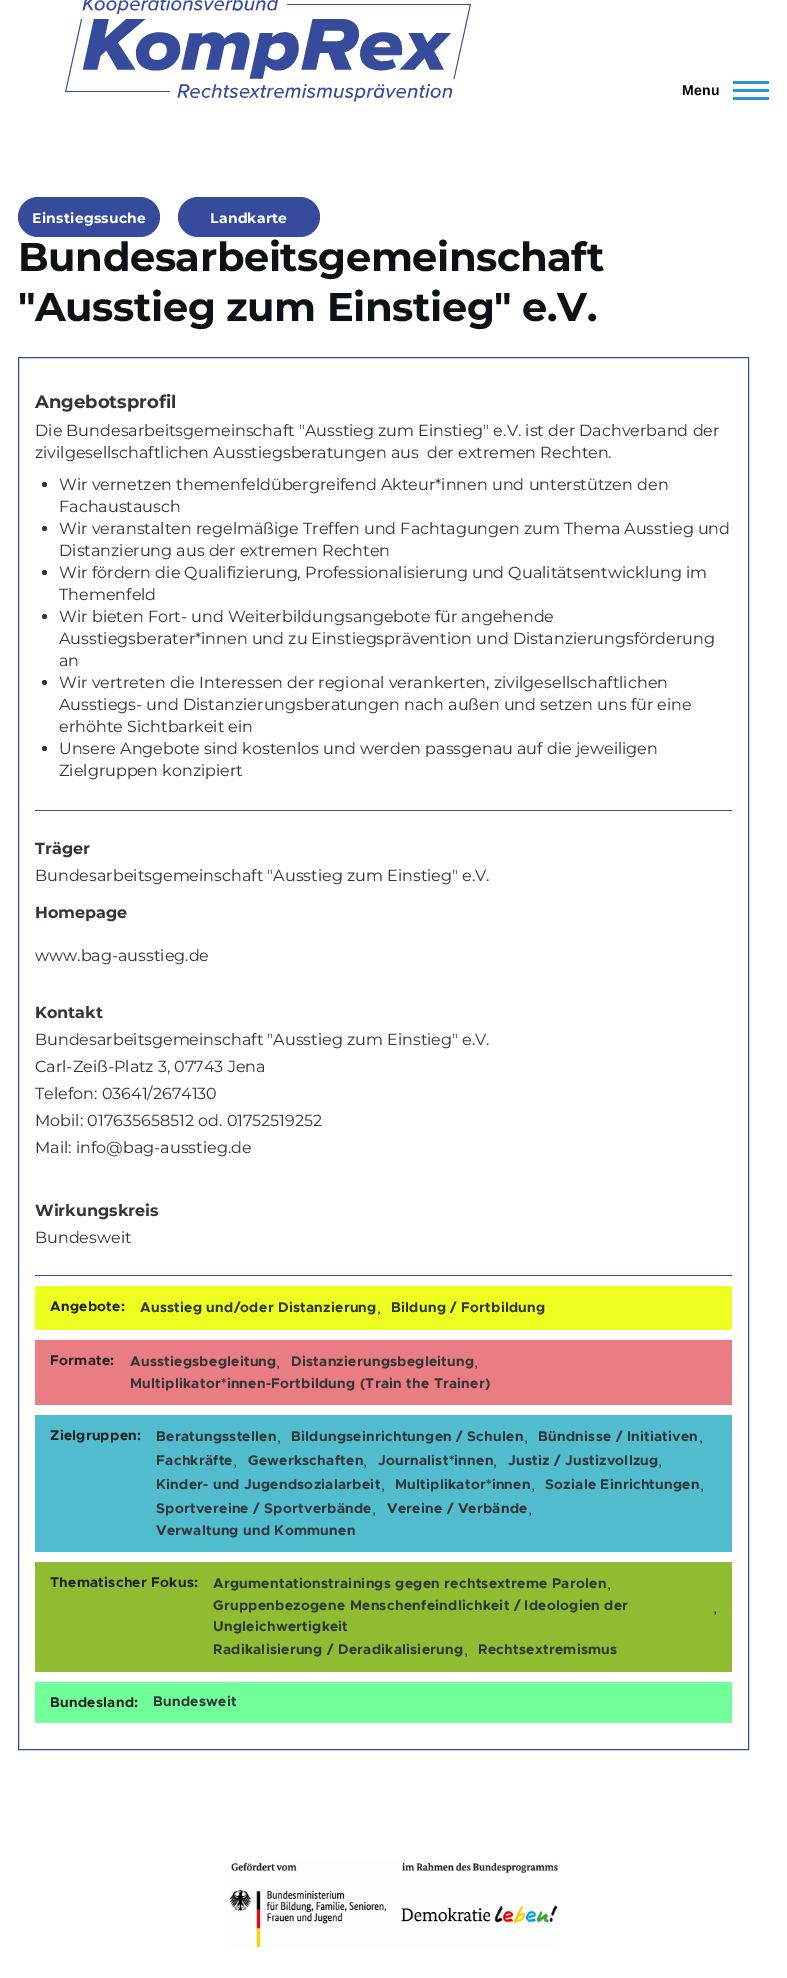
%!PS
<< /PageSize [787 1978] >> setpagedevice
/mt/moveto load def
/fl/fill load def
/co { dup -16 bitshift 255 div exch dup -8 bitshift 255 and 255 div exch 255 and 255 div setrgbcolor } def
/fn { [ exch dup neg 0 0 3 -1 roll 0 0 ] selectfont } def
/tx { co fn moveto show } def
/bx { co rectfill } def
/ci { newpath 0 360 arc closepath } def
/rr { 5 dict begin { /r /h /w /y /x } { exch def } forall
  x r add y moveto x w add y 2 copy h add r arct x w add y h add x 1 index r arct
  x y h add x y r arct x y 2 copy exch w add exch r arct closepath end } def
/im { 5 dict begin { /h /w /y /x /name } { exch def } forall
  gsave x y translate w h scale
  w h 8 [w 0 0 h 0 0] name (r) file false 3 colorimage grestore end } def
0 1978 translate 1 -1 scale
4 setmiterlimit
0 0 787 1978 16#FFFFFF bx
(media/1.raw) 65 0 406 102 im
733 89 36 3 16#2494DB bx
733 81 36 3 16#2494DB bx
733 97 36 3 16#2494DB bx
16#364B9B co
18 197 142 40 20 rr fl
178 197 142 40 20 rr fl
18.5 357.5 730 1392 rectstroke
35 810 697 1 16#364B9B bx
16#313637 co
44.5 484.5 2.5 ci fl
44.5 528.5 2.5 ci fl
44.5 572.5 2.5 ci fl
44.5 616.5 2.5 ci fl
44.5 682.5 2.5 ci fl
44.5 748.5 2.5 ci fl
35 1275 697 1 16#364B9B bx
35 1286 697 44 16#EDFF21 bx
35 1340 697 65 16#EA7C83 bx
35 1415 697 137 16#52BCCF bx
35 1562 697 110 16#90BC31 bx
35 1682 697 41 16#71FF9A bx
(media/2.raw) 229 1862 329 86 im
/LiberationSans-Bold 14 fn
16#000000 co
682 95 mt .5 0 (Menu) ashow
/Montserrat-Bold 14 fn
16#FFFFFF co
32 223 mt .25 0 (Einstiegssuche) ashow
210 223 mt .25 0 (Landkarte) ashow
/Montserrat-Bold 40 fn
16#0D1214 co
18 271 mt -.4 0 (Bundesarbeitsgemeinschaft) ashow
18 321 mt -.4 0 ("Ausstieg zum Einstieg" e.V.) ashow
(Angebotsprofil) 35 408 /Montserrat-Bold 18 16#313637 tx
(Die Bundesarbeitsgemeinschaft "Ausstieg zum Einstieg" e.V. ist der Dachverband der) 35 436 /Montserrat-Thin 16 16#313637 tx
(zivilgesellschaftlichen Ausstiegsberatungen aus  der extremen Rechten.) 35 458 /Montserrat-Thin 16 16#313637 tx
(Wir vernetzen themenfeldübergreifend Akteur*innen und unterstützen den) 59 490 /Montserrat-Thin 16 16#313637 tx
(Fachaustausch) 59 512 /Montserrat-Thin 16 16#313637 tx
(Wir veranstalten regelmäßige Treffen und Fachtagungen zum Thema Ausstieg und) 59 534 /Montserrat-Thin 16 16#313637 tx
(Distanzierung aus der extremen Rechten) 59 556 /Montserrat-Thin 16 16#313637 tx
(Wir fördern die Qualifizierung, Professionalisierung und Qualitätsentwicklung im) 59 578 /Montserrat-Thin 16 16#313637 tx
(Themenfeld) 59 600 /Montserrat-Thin 16 16#313637 tx
(Wir bieten Fort- und Weiterbildungsangebote für angehende) 59 622 /Montserrat-Thin 16 16#313637 tx
(Ausstiegsberater*innen und zu Einstiegsprävention und Distanzierungsförderung) 59 644 /Montserrat-Thin 16 16#313637 tx
(an) 59 666 /Montserrat-Thin 16 16#313637 tx
(Wir vertreten die Interessen der regional verankerten, zivilgesellschaftlichen) 59 688 /Montserrat-Thin 16 16#313637 tx
(Ausstiegs- und Distanzierungsberatungen nach außen und setzen uns für eine) 59 710 /Montserrat-Thin 16 16#313637 tx
(erhöhte Sichtbarkeit ein) 59 732 /Montserrat-Thin 16 16#313637 tx
(Unsere Angebote sind kostenlos und werden passgenau auf die jeweiligen) 59 754 /Montserrat-Thin 16 16#313637 tx
(Zielgruppen konzipiert) 59 776 /Montserrat-Thin 16 16#313637 tx
(Träger) 35 854 /Montserrat-Bold 16 16#313637 tx
(Bundesarbeitsgemeinschaft "Ausstieg zum Einstieg" e.V.) 35 881 /Montserrat-Thin 16 16#313637 tx
(Homepage) 35 918 /Montserrat-Bold 16 16#313637 tx
(www.bag-ausstieg.de) 35 961 /Montserrat-Thin 16 16#313637 tx
(Kontakt) 35 1018 /Montserrat-Bold 16 16#313637 tx
(Bundesarbeitsgemeinschaft "Ausstieg zum Einstieg" e.V.) 35 1045 /Montserrat-Thin 16 16#313637 tx
(Carl-Zeiß-Platz 3, 07743 Jena) 35 1072 /Montserrat-Thin 16 16#313637 tx
(Telefon: 03641/2674130) 35 1099 /Montserrat-Thin 16 16#313637 tx
(Mobil: 017635658512 od. 01752519252) 35 1126 /Montserrat-Thin 16 16#313637 tx
(Mail: info@bag-ausstieg.de) 35 1153 /Montserrat-Thin 16 16#313637 tx
(Wirkungskreis) 35 1216 /Montserrat-Bold 16 16#313637 tx
(Bundesweit) 35 1243 /Montserrat-Thin 16 16#313637 tx
/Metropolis-Bold 14 fn
16#222222 co
50 1311 mt .28 0 (Angebote:) ashow
16#313637 co
140 1312 mt .28 0 (Ausstieg und/oder Distanzierung) ashow
(,) 377 1313 /Metropolis-Regular 16 16#313637 tx
/Metropolis-Bold 14 fn
391 1312 mt .28 0 (Bildung / Fortbildung) ashow
16#222222 co
50 1365 mt .28 0 (Formate:) ashow
16#313637 co
130 1366 mt .28 0 (Ausstiegsbegleitung) ashow
(,) 276 1367 /Metropolis-Regular 16 16#313637 tx
/Metropolis-Bold 14 fn
291 1366 mt .28 0 (Distanzierungsbegleitung) ashow
(,) 474 1367 /Metropolis-Regular 16 16#313637 tx
/Metropolis-Bold 14 fn
130 1388 mt .28 0 (Multiplikator*innen-Fortbildung \(Train the Trainer\)) ashow
16#222222 co
50 1440 mt .28 0 (Zielgruppen:) ashow
16#313637 co
156 1441 mt .28 0 (Beratungsstellen) ashow
(,) 277 1442 /Metropolis-Regular 16 16#313637 tx
/Metropolis-Bold 14 fn
291 1441 mt .28 0 (Bildungseinrichtungen / Schulen) ashow
(,) 524 1442 /Metropolis-Regular 16 16#313637 tx
/Metropolis-Bold 14 fn
538 1441 mt .28 0 (Bündnisse / Initiativen) ashow
(,) 699 1442 /Metropolis-Regular 16 16#313637 tx
/Metropolis-Bold 14 fn
156 1465 mt .28 0 (Fachkräfte) ashow
(,) 233 1466 /Metropolis-Regular 16 16#313637 tx
/Metropolis-Bold 14 fn
248 1465 mt .28 0 (Gewerkschaften) ashow
(,) 363 1466 /Metropolis-Regular 16 16#313637 tx
/Metropolis-Bold 14 fn
378 1465 mt .28 0 (Journalist*innen) ashow
(,) 493 1466 /Metropolis-Regular 16 16#313637 tx
/Metropolis-Bold 14 fn
508 1465 mt .28 0 (Justiz / Justizvollzug) ashow
(,) 658 1466 /Metropolis-Regular 16 16#313637 tx
/Metropolis-Bold 14 fn
156 1489 mt .28 0 (Kinder- und Jugendsozialarbeit) ashow
(,) 381 1490 /Metropolis-Regular 16 16#313637 tx
/Metropolis-Bold 14 fn
395 1489 mt .28 0 (Multiplikator*innen) ashow
(,) 531 1490 /Metropolis-Regular 16 16#313637 tx
/Metropolis-Bold 14 fn
545 1489 mt .28 0 (Soziale Einrichtungen) ashow
(,) 700 1490 /Metropolis-Regular 16 16#313637 tx
/Metropolis-Bold 14 fn
156 1513 mt .28 0 (Sportvereine / Sportverbände) ashow
(,) 372 1514 /Metropolis-Regular 16 16#313637 tx
/Metropolis-Bold 14 fn
387 1513 mt .28 0 (Vereine / Verbände) ashow
(,) 528 1514 /Metropolis-Regular 16 16#313637 tx
/Metropolis-Bold 14 fn
156 1535 mt .28 0 (Verwaltung und Kommunen) ashow
16#222222 co
50 1587 mt .28 0 (Thematischer Fokus:) ashow
16#313637 co
213 1588 mt .28 0 (Argumentationstrainings gegen rechtsextreme Parolen) ashow
(,) 607 1589 /Metropolis-Regular 16 16#313637 tx
/Metropolis-Bold 14 fn
213 1610 mt .28 0 (Gruppenbezogene Menschenfeindlichkeit / Ideologien der) ashow
213 1631 mt .28 0 (Ungleichwertigkeit) ashow
(,) 713 1613 /Metropolis-Regular 16 16#313637 tx
/Metropolis-Bold 14 fn
213 1654 mt .28 0 (Radikalisierung / Deradikalisierung) ashow
(,) 464 1655 /Metropolis-Regular 16 16#313637 tx
/Metropolis-Bold 14 fn
478 1654 mt .28 0 (Rechtsextremismus) ashow
16#222222 co
50 1707 mt .28 0 (Bundesland:) ashow
16#313637 co
153 1706 mt .28 0 (Bundesweit) ashow
showpage
